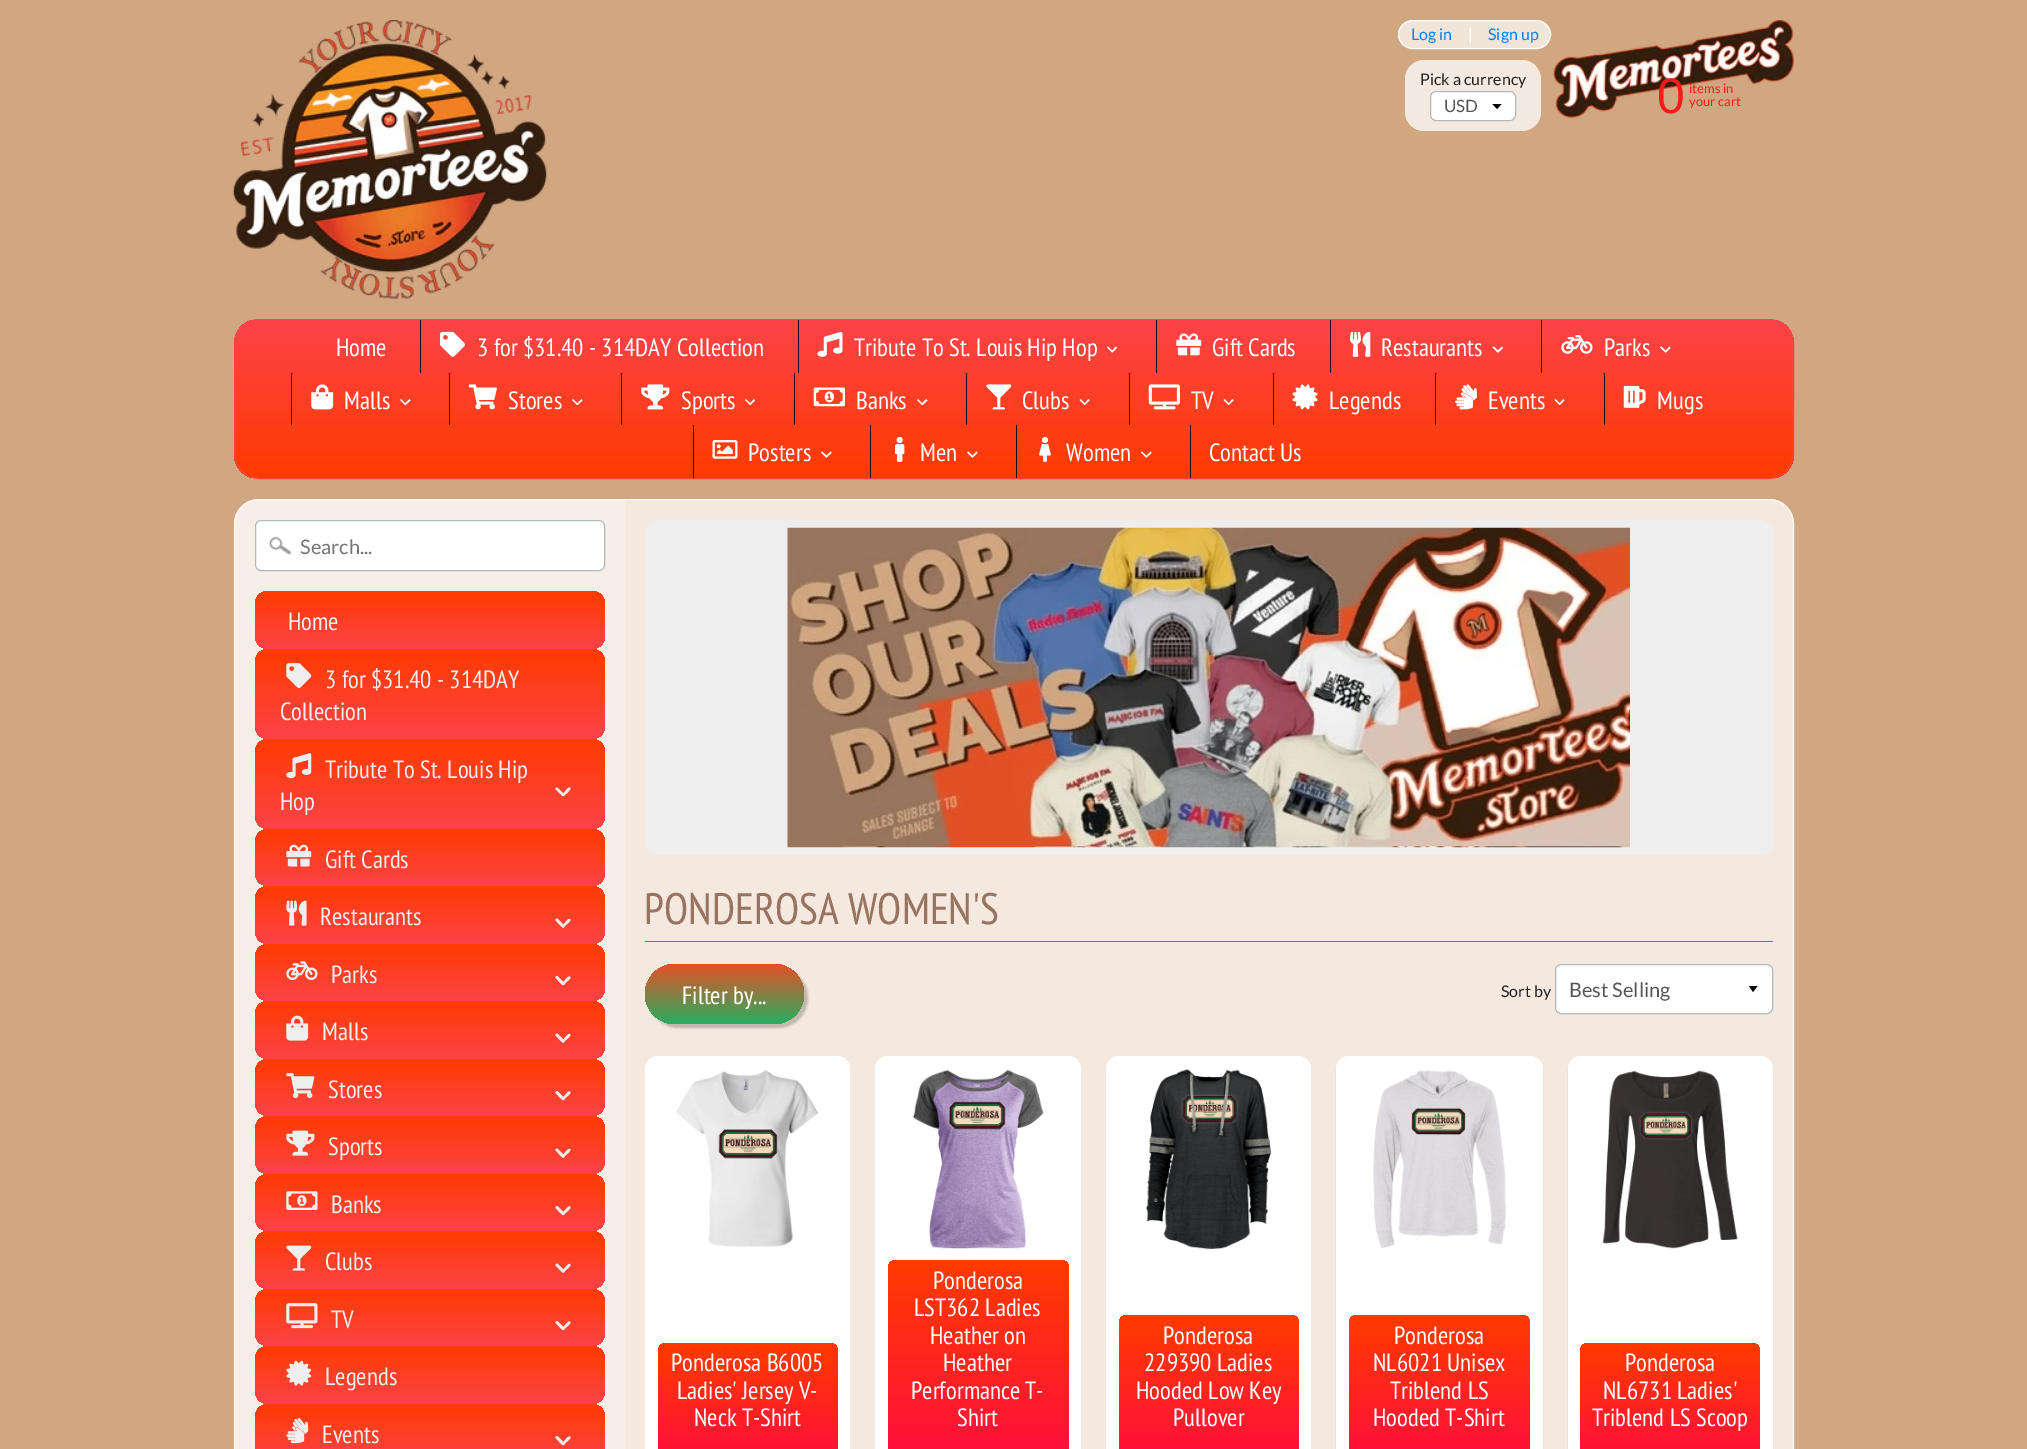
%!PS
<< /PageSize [2027 1449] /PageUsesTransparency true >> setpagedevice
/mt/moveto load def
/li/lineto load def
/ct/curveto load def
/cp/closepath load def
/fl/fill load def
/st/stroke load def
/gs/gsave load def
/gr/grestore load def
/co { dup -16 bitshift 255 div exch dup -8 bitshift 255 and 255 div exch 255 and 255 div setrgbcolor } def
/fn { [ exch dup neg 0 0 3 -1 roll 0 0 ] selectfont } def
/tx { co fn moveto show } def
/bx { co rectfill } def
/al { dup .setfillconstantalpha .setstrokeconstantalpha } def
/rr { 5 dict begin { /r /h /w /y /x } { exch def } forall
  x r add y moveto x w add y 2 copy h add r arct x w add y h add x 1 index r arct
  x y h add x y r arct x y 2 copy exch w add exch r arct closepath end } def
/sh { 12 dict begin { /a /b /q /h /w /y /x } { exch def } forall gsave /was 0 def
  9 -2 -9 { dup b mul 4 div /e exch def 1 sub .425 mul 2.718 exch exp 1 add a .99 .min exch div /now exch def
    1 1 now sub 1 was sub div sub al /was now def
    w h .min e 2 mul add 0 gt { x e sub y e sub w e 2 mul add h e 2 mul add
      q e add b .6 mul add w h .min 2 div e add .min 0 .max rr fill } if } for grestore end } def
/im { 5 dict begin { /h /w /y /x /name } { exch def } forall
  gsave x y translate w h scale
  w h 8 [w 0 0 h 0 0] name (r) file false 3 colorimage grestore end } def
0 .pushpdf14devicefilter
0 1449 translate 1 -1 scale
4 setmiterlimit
0 0 2027 1449 16#D1A782 bx
(media/1.raw) 233 20 314 279 im
16#F1E5DA co
1398.5 20.5 152 28 14 rr gs fl gr
16#FFFFFF co
st
(media/2.raw) 1553 20 241 98 im
gs
234 319 1560 160 25 rr clip newpath
gs 234 320 mt 1794 320 li 1794 478 li 234 478 li cp clip newpath
<< /ShadingType 2 /ColorSpace /DeviceRGB /Coords [1014 320 1014 478] /Extend [true true] /Function << /FunctionType 2 /Domain [0 1] /C0 [.988 .263 .286] /C1 [1 .231 0] /N 1 >> >> shfill gr
gr
16#FC4349 co
234.5 319.5 1559 159 24.5 rr st
420 320 1 53 16#141313 bx
(media/3.raw) 440 331 25 26 im
798 320 1 53 16#141313 bx
(media/4.raw) 817 331 26 26 im
16#FFFFFF co
1116 346.5 mt 1117 348 li 1112.5 352.5 li 1111.5 351.5 li cp fl
1108 346.5 mt 1113 351.5 li 1112 352.5 li 1107 347.5 li cp fl
1156 320 1 53 16#141313 bx
(media/5.raw) 1176 333 26 23 im
1330 320 1 53 16#141313 bx
(media/6.raw) 1350 331 21 26 im
16#FFFFFF co
1502 346.5 mt 1503 348 li 1498.5 352.5 li 1497 351.5 li cp fl
1494 346.5 mt 1499 351.5 li 1497.5 352.5 li 1492.5 347.5 li cp fl
1541 320 1 53 16#141313 bx
(media/7.raw) 1561 335 32 19 im
16#FFFFFF co
1669.5 346.5 mt 1670.5 348 li 1666 352.5 li 1665 351.5 li cp fl
1661.5 346.5 mt 1666.5 351.5 li 1665.5 352.5 li 1660 347.5 li cp fl
291 373 1 52 16#141313 bx
(media/8.raw) 311 384 23 26 im
16#FFFFFF co
409.5 399 mt 410.5 400.5 li 405.5 405 li 404.5 404 li cp fl
401 399 mt 406 404 li 405 405 li 400 400 li cp fl
449 373 1 52 16#141313 bx
(media/9.raw) 468 384 29 26 im
16#FFFFFF co
581.5 399 mt 582.5 400.5 li 577.5 405 li 576.5 404 li cp fl
573 399 mt 578 404 li 577 405 li 572 400 li cp fl
621 373 1 52 16#141313 bx
(media/10.raw) 641 384 29 26 im
16#FFFFFF co
754 399 mt 755 400.5 li 750.5 405 li 749.5 404 li cp fl
746 399 mt 751 404 li 750 405 li 745 400 li cp fl
794 373 1 52 16#141313 bx
(media/11.raw) 813 387 32 20 im
16#FFFFFF co
926 399 mt 927.5 400.5 li 922.5 405 li 921.5 404 li cp fl
918 399 mt 923 404 li 922 405 li 917 400 li cp fl
966 373 1 52 16#141313 bx
(media/12.raw) 986 384 26 26 im
16#FFFFFF co
1088.5 399 mt 1089.5 400.5 li 1085 405 li 1084 404 li cp fl
1080.5 399 mt 1085.5 404 li 1084.5 405 li 1079.5 400 li cp fl
1129 373 1 52 16#141313 bx
(media/13.raw) 1148 384 32 26 im
16#FFFFFF co
1232.5 399 mt 1233.5 400.5 li 1229 405 li 1228 404 li cp fl
1224.5 399 mt 1229.5 404 li 1228.5 405 li 1223.5 400 li cp fl
1273 373 1 52 16#141313 bx
(media/14.raw) 1292 384 26 26 im
1435 373 1 52 16#141313 bx
(media/15.raw) 1455 384 22 26 im
16#FFFFFF co
1563.5 399 mt 1564.5 400.5 li 1560 405 li 1559 404 li cp fl
1555.5 399 mt 1560.5 404 li 1559.5 405 li 1554.5 400 li cp fl
1604 373 1 52 16#141313 bx
(media/16.raw) 1623 385 23 23 im
693 425 1 53 16#141313 bx
(media/17.raw) 712 440 26 19 im
16#FFFFFF co
830.5 451.5 mt 831.5 453 li 826.5 457.5 li 825.5 456.5 li cp fl
822 451.5 mt 827.5 456.5 li 826 457.5 li 821 452.5 li cp fl
870 425 1 53 16#141313 bx
(media/18.raw) 895 436 10 26 im
16#FFFFFF co
976.5 451.5 mt 977.5 453 li 972.5 457.5 li 971.5 456.5 li cp fl
968 451.5 mt 973.5 456.5 li 972 457.5 li 967 452.5 li cp fl
1016 425 1 53 16#141313 bx
(media/19.raw) 1039 436 12 26 im
16#FFFFFF co
1150.5 451.5 mt 1151.5 453 li 1146.5 457.5 li 1145.5 456.5 li cp fl
1142 451.5 mt 1147 456.5 li 1146 457.5 li 1141 452.5 li cp fl
1190 425 1 53 16#141313 bx
16#F4E9E0 co
1405 60 136 71 19 rr fl
16#FFFFFF co
1430 91 86 30 6 rr fl
16#000000 co
1492.5 104 mt 1497 109 li 1501.5 104 li cp fl
16#B2B9BD co
1430.5 91.5 85 29 5.5 rr st
16#F4E8DF co
234 499 1560 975 25 rr fl
0.7 al
16#FFFFFF co
234.5 499.5 1559 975 24.5 rr st
0.25 al
259 500 mt 625 500 li 625 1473 li 259 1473 li 245.5 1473 235 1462.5 235 1449 ct 235 524 li 235 510.5 245.5 500 259 500 ct cp fl
1 al
255 520 350 51 6 rr fl
(media/20.raw) 268 536 24 19 im
16#B2B9BD co
255.5 520.5 349 50 5.5 rr st
gs 255 591 350 58 13 rr clip newpath
<< /ShadingType 2 /ColorSpace /DeviceRGB /Coords [430 591 430 649] /Extend [true true] /Function << /FunctionType 2 /Domain [0 1] /C0 [1 .231 0] /C1 [.988 .263 .286] /N 1 >> >> shfill gr
gs 255 649 350 90 13 rr clip newpath
<< /ShadingType 2 /ColorSpace /DeviceRGB /Coords [430 649 430 739] /Extend [true true] /Function << /FunctionType 2 /Domain [0 1] /C0 [1 .231 0] /C1 [.988 .263 .286] /N 1 >> >> shfill gr
(media/21.raw) 286 663 26 26 im
gs 255 739 350 90 13 rr clip newpath
<< /ShadingType 2 /ColorSpace /DeviceRGB /Coords [430 739 430 829] /Extend [true true] /Function << /FunctionType 2 /Domain [0 1] /C0 [1 .231 0] /C1 [.988 .263 .286] /N 1 >> >> shfill gr
(media/22.raw) 286 753 26 26 im
16#EEEEEE co
558 788 mt 561 791 li 561.5 792 564.5 794 564.5 795 ct 563.5 798.5 558.5 792 558 791.5 ct 555.5 789.5 li 555 788 557 787 558 788 ct cp fl
562.5 794 mt 565.5 791 li 566 790 568 787.5 569.5 787.5 ct 573 788 566.5 793.5 566 794 ct 563.5 796 li 562.5 796.5 561.5 795 562.5 794 ct cp fl
gs 255 829 350 57 13 rr clip newpath
<< /ShadingType 2 /ColorSpace /DeviceRGB /Coords [430 829 430 886] /Extend [true true] /Function << /FunctionType 2 /Domain [0 1] /C0 [1 .231 0] /C1 [.988 .263 .286] /N 1 >> >> shfill gr
(media/23.raw) 286 844 26 23 im
gs 255 886 350 58 13 rr clip newpath
<< /ShadingType 2 /ColorSpace /DeviceRGB /Coords [430 886 430 944] /Extend [true true] /Function << /FunctionType 2 /Domain [0 1] /C0 [1 .231 0] /C1 [.988 .263 .286] /N 1 >> >> shfill gr
(media/24.raw) 286 900 21 26 im
558 919 mt 561 922 li 561.5 923 564.5 925 564.5 926.5 ct 563.5 930 558.5 923.5 558 923 ct 555.5 920.5 li 555 919.5 557 918 558 919 ct cp fl
562.5 925.5 mt 565.5 922 li 566 921.5 568 918.5 569.5 919 ct 573 919.5 566.5 924.5 566 925 ct 563.5 927.5 li 562.5 928 561.5 926.5 562.5 925.5 ct cp fl
gs 255 944 350 57 13 rr clip newpath
<< /ShadingType 2 /ColorSpace /DeviceRGB /Coords [430 944 430 1001] /Extend [true true] /Function << /FunctionType 2 /Domain [0 1] /C0 [1 .231 0] /C1 [.988 .263 .286] /N 1 >> >> shfill gr
(media/25.raw) 286 961 32 19 im
558 976.5 mt 561 979.5 li 561.5 980.5 564.5 982.5 564.5 984 ct 563.5 987.5 558.5 981 558 980.5 ct 555.5 978 li 555 977 557 975.5 558 976.5 ct cp fl
562.5 983 mt 565.5 979.5 li 566 979 568 976 569.5 976.5 ct 573 977 566.5 982 566 982.5 ct 563.5 985 li 562.5 985.5 561.5 984 562.5 983 ct cp fl
gs 255 1001 350 58 13 rr clip newpath
<< /ShadingType 2 /ColorSpace /DeviceRGB /Coords [430 1001 430 1059] /Extend [true true] /Function << /FunctionType 2 /Domain [0 1] /C0 [1 .231 0] /C1 [.988 .263 .286] /N 1 >> >> shfill gr
(media/26.raw) 286 1015 23 26 im
558 1034 mt 561 1037 li 561.5 1038 564.5 1040 564.5 1041.5 ct 563.5 1045 558.5 1038.5 558 1038 ct 555.5 1035.5 li 555 1034.5 557 1033 558 1034 ct cp fl
562.5 1040.5 mt 565.5 1037 li 566 1036.5 568 1033.5 569.5 1034 ct 573 1034.5 566.5 1039.5 566 1040 ct 563.5 1042.5 li 562.5 1043 561.5 1041.5 562.5 1040.5 ct cp fl
gs 255 1059 350 57 13 rr clip newpath
<< /ShadingType 2 /ColorSpace /DeviceRGB /Coords [430 1059 430 1116] /Extend [true true] /Function << /FunctionType 2 /Domain [0 1] /C0 [1 .231 0] /C1 [.988 .263 .286] /N 1 >> >> shfill gr
(media/27.raw) 286 1073 29 26 im
558 1091.5 mt 561 1094.5 li 561.5 1095.5 564.5 1097.5 564.5 1099 ct 563.5 1102.5 558.5 1096 558 1095.5 ct 555.5 1093 li 555 1092 557 1090.5 558 1091.5 ct cp fl
562.5 1098 mt 565.5 1094.5 li 566 1094 568 1091 569.5 1091.5 ct 573 1092 566.5 1097 566 1097.5 ct 563.5 1100 li 562.5 1100.5 561.5 1099 562.5 1098 ct cp fl
gs 255 1116 350 58 13 rr clip newpath
<< /ShadingType 2 /ColorSpace /DeviceRGB /Coords [430 1116 430 1174] /Extend [true true] /Function << /FunctionType 2 /Domain [0 1] /C0 [1 .231 0] /C1 [.988 .263 .286] /N 1 >> >> shfill gr
(media/28.raw) 286 1130 29 26 im
558 1149 mt 561 1152 li 561.5 1153 564.5 1155 564.5 1156.5 ct 563.5 1160 558.5 1153.5 558 1153 ct 555.5 1150.5 li 555 1149.5 557 1148 558 1149 ct cp fl
562.5 1155.5 mt 565.5 1152 li 566 1151.5 568 1148.5 569.5 1149 ct 573 1149.5 566.5 1154.5 566 1155 ct 563.5 1157.5 li 562.5 1158 561.5 1156.5 562.5 1155.5 ct cp fl
gs 255 1174 350 57 13 rr clip newpath
<< /ShadingType 2 /ColorSpace /DeviceRGB /Coords [430 1174 430 1231] /Extend [true true] /Function << /FunctionType 2 /Domain [0 1] /C0 [1 .231 0] /C1 [.988 .263 .286] /N 1 >> >> shfill gr
(media/29.raw) 286 1191 32 19 im
558 1206.5 mt 561 1209.5 li 561.5 1210.5 564.5 1212.5 564.5 1214 ct 563.5 1217.5 558.5 1211 558 1210.5 ct 555.5 1208 li 555 1207 557 1205.5 558 1206.5 ct cp fl
562.5 1213 mt 565.5 1209.5 li 566 1209 568 1206 569.5 1206.5 ct 573 1207 566.5 1212 566 1212.5 ct 563.5 1215 li 562.5 1215.5 561.5 1214 562.5 1213 ct cp fl
gs 255 1231 350 58 13 rr clip newpath
<< /ShadingType 2 /ColorSpace /DeviceRGB /Coords [430 1231 430 1289] /Extend [true true] /Function << /FunctionType 2 /Domain [0 1] /C0 [1 .231 0] /C1 [.988 .263 .286] /N 1 >> >> shfill gr
(media/30.raw) 286 1245 26 26 im
558 1264 mt 561 1267 li 561.5 1268 564.5 1270 564.5 1271.5 ct 563.5 1275 558.5 1268.5 558 1268 ct 555.5 1265.5 li 555 1264.5 557 1263 558 1264 ct cp fl
562.5 1270.5 mt 565.5 1267 li 566 1266.5 568 1263.5 569.5 1264 ct 573 1264.5 566.5 1269.5 566 1270 ct 563.5 1272.5 li 562.5 1273 561.5 1271.5 562.5 1270.5 ct cp fl
gs 255 1289 350 57 13 rr clip newpath
<< /ShadingType 2 /ColorSpace /DeviceRGB /Coords [430 1289 430 1346] /Extend [true true] /Function << /FunctionType 2 /Domain [0 1] /C0 [1 .231 0] /C1 [.988 .263 .286] /N 1 >> >> shfill gr
(media/31.raw) 286 1303 32 26 im
558 1321.5 mt 561 1324.5 li 561.5 1325.5 564.5 1327.5 564.5 1329 ct 563.5 1332.5 558.5 1326 558 1325.5 ct 555.5 1323 li 555 1322 557 1320.5 558 1321.5 ct cp fl
562.5 1328 mt 565.5 1324.5 li 566 1324 568 1321 569.5 1321.5 ct 573 1322 566.5 1327 566 1327.5 ct 563.5 1330 li 562.5 1330.5 561.5 1329 562.5 1328 ct cp fl
gs 255 1346 350 58 13 rr clip newpath
<< /ShadingType 2 /ColorSpace /DeviceRGB /Coords [430 1346 430 1404] /Extend [true true] /Function << /FunctionType 2 /Domain [0 1] /C0 [1 .231 0] /C1 [.988 .263 .286] /N 1 >> >> shfill gr
(media/32.raw) 286 1360 26 26 im
gs 255 1404 350 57 13 rr clip newpath
<< /ShadingType 2 /ColorSpace /DeviceRGB /Coords [430 1404 430 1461] /Extend [true true] /Function << /FunctionType 2 /Domain [0 1] /C0 [1 .231 0] /C1 [.988 .263 .286] /N 1 >> >> shfill gr
(media/33.raw) 286 1418 23 26 im
558 1436.5 mt 561 1439.5 li 561.5 1440.5 564.5 1442.5 564.5 1444 ct 563.5 1447.5 558.5 1441 558 1440.5 ct 555.5 1438 li 555 1437 557 1435.5 558 1436.5 ct cp fl
562.5 1443 mt 565.5 1439.5 li 566 1439 568 1436 569.5 1436.5 ct 573 1437 566.5 1442 566 1442.5 ct 563.5 1445 li 562.5 1445.5 561.5 1444 562.5 1443 ct cp fl
645 520 1128 335 13 rr fl
(media/34.raw) 787 527 843 321 im
645 941 1128 1 16#E55027 bx
16#000000 co
649 968 159 60 30 1 .2 sh
gs 645 964 159 60 30 rr clip newpath
<< /ShadingType 2 /ColorSpace /DeviceRGB /Coords [724 964 724 1024] /Extend [true true] /Function << /FunctionType 2 /Domain [0 1] /C0 [.898 .314 .153] /C1 [.153 .682 .376] /N 1 >> >> shfill gr
16#FFFFFF co
1555 964 218 50 6 rr fl
16#000000 co
1749 986 mt 1753 992 li 1757.5 986 li cp fl
16#B2B9BD co
1555.5 964.5 217 49 5.5 rr st
16#FFFFFF co
645 1056 205 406 13 rr fl
(media/35.raw) 676 1070 143 177 im
gs 658 1343 180 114 8 rr clip newpath
<< /ShadingType 2 /ColorSpace /DeviceRGB /Coords [748 1343 748 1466] /Extend [true true] /Function << /FunctionType 2 /Domain [0 1] /C0 [1 .231 0] /C1 [1 .051 .247] /N 1 >> >> shfill gr
875 1056 206 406 13 rr fl
(media/36.raw) 912 1069 132 180 im
gs 888 1260 181 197 8 rr clip newpath
<< /ShadingType 2 /ColorSpace /DeviceRGB /Coords [978 1260 978 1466] /Extend [true true] /Function << /FunctionType 2 /Domain [0 1] /C0 [1 .231 0] /C1 [1 .051 .247] /N 1 >> >> shfill gr
1106 1056 205 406 13 rr fl
(media/37.raw) 1146 1069 126 181 im
gs 1119 1315 180 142 8 rr clip newpath
<< /ShadingType 2 /ColorSpace /DeviceRGB /Coords [1209 1315 1209 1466] /Extend [true true] /Function << /FunctionType 2 /Domain [0 1] /C0 [1 .231 0] /C1 [1 .051 .247] /N 1 >> >> shfill gr
16#000000 co
1336 1058 207 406 13 .5 .1 sh
16#FFFFFF co
1336 1056 207 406 13 rr fl
(media/38.raw) 1373 1070 133 179 im
gs 1349 1315 181 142 8 rr clip newpath
<< /ShadingType 2 /ColorSpace /DeviceRGB /Coords [1439 1315 1439 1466] /Extend [true true] /Function << /FunctionType 2 /Domain [0 1] /C0 [1 .231 0] /C1 [1 .051 .247] /N 1 >> >> shfill gr
16#000000 co
1568 1058 205 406 13 .5 .1 sh
16#FFFFFF co
1568 1056 205 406 13 rr fl
(media/39.raw) 1602 1070 136 179 im
gs 1580 1343 180 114 8 rr clip newpath
<< /ShadingType 2 /ColorSpace /DeviceRGB /Coords [1670 1343 1670 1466] /Extend [true true] /Function << /FunctionType 2 /Domain [0 1] /C0 [1 .231 0] /C1 [1 .051 .247] /N 1 >> >> shfill gr
(Log in) 1411 40 /Lato-Regular 16 16#037EFA tx
(|) 1468 40 /Lato-Regular 16 16#FFFFFF tx
(Sign up) 1488 40 /Lato-Regular 16 16#037EFA tx
(0) 1657 113 /LiberationSans-Regular 50 16#FB1919 tx
(items in) 1689 93 /Lato-Regular 13 16#FB1919 tx
(your cart) 1689 106 /Lato-Regular 13 16#FB1919 tx
(Home) 336 356 /PTSansNarrow-Regular 25 16#FFFFFF tx
(3 for $31.40 - 314DAY Collection) 477 356 /PTSansNarrow-Regular 25 16#FFFFFF tx
(Tribute To St. Louis Hip Hop) 854 356 /PTSansNarrow-Regular 25 16#FFFFFF tx
(Gift Cards) 1212 356 /PTSansNarrow-Regular 25 16#FFFFFF tx
(Restaurants) 1381 356 /PTSansNarrow-Regular 25 16#FFFFFF tx
(Parks) 1604 356 /PTSansNarrow-Regular 25 16#FFFFFF tx
(Malls) 344 409 /PTSansNarrow-Regular 25 16#FFFFFF tx
(Stores) 508 409 /PTSansNarrow-Regular 25 16#FFFFFF tx
(Sports) 681 409 /PTSansNarrow-Regular 25 16#FFFFFF tx
(Banks) 856 409 /PTSansNarrow-Regular 25 16#FFFFFF tx
(Clubs) 1022 409 /PTSansNarrow-Regular 25 16#FFFFFF tx
(TV) 1191 409 /PTSansNarrow-Regular 25 16#FFFFFF tx
(Legends) 1329 409 /PTSansNarrow-Regular 25 16#FFFFFF tx
(Events) 1488 409 /PTSansNarrow-Regular 25 16#FFFFFF tx
(Mugs) 1657 409 /PTSansNarrow-Regular 25 16#FFFFFF tx
(Posters) 748 461 /PTSansNarrow-Regular 25 16#FFFFFF tx
(Men) 920 461 /PTSansNarrow-Regular 25 16#FFFFFF tx
(Women) 1066 461 /PTSansNarrow-Regular 25 16#FFFFFF tx
(Contact Us) 1209 461 /PTSansNarrow-Regular 25 16#FFFFFF tx
(Pick a currency) 1420 85 /Lato-Regular 16 16#222222 tx
(USD) 1444 112 /Lato-Regular 17 16#555555 tx
(Search...) 300 554 /Lato-Regular 20 16#757575 tx
(Home) 288 630 /PTSansNarrow-Regular 25 16#EEEEEE tx
(3 for $31.40 - 314DAY) 325 688 /PTSansNarrow-Regular 25 16#EEEEEE tx
(Collection) 280 720 /PTSansNarrow-Regular 25 16#EEEEEE tx
(Tribute To St. Louis Hip) 325 778 /PTSansNarrow-Regular 25 16#EEEEEE tx
(Hop) 280 810 /PTSansNarrow-Regular 25 16#EEEEEE tx
(Gift Cards) 325 868 /PTSansNarrow-Regular 25 16#EEEEEE tx
(Restaurants) 320 925 /PTSansNarrow-Regular 25 16#EEEEEE tx
(Parks) 331 983 /PTSansNarrow-Regular 25 16#EEEEEE tx
(Malls) 322 1040 /PTSansNarrow-Regular 25 16#EEEEEE tx
(Stores) 328 1098 /PTSansNarrow-Regular 25 16#EEEEEE tx
(Sports) 328 1155 /PTSansNarrow-Regular 25 16#EEEEEE tx
(Banks) 331 1213 /PTSansNarrow-Regular 25 16#EEEEEE tx
(Clubs) 325 1270 /PTSansNarrow-Regular 25 16#EEEEEE tx
(TV) 331 1328 /PTSansNarrow-Regular 25 16#EEEEEE tx
(Legends) 325 1385 /PTSansNarrow-Regular 25 16#EEEEEE tx
(Events) 322 1443 /PTSansNarrow-Regular 25 16#EEEEEE tx
(PONDEROSA WOMEN'S) 644 924 /PTSansNarrow-Regular 44 16#98745F tx
(Filter by...) 682 1004 /PTSansNarrow-Regular 25 16#FFFFFF tx
(Sort by) 1501 997 /Lato-Regular 16 16#222222 tx
(Best Selling) 1569 997 /Lato-Regular 20 16#555555 tx
(Ponderosa B6005) 671 1371 /PTSansNarrow-Regular 25 16#FFFFFF tx
(Ladies' Jersey V-) 677 1399 /PTSansNarrow-Regular 25 16#FFFFFF tx
(Neck T-Shirt) 694 1426 /PTSansNarrow-Regular 25 16#FFFFFF tx
(Ponderosa) 933 1289 /PTSansNarrow-Regular 25 16#FFFFFF tx
(LST362 Ladies) 914 1316 /PTSansNarrow-Regular 25 16#FFFFFF tx
(Heather on) 930 1344 /PTSansNarrow-Regular 25 16#FFFFFF tx
(Heather) 943 1371 /PTSansNarrow-Regular 25 16#FFFFFF tx
(Performance T-) 911 1399 /PTSansNarrow-Regular 25 16#FFFFFF tx
(Shirt) 957 1426 /PTSansNarrow-Regular 25 16#FFFFFF tx
(Ponderosa) 1163 1344 /PTSansNarrow-Regular 25 16#FFFFFF tx
(229390 Ladies) 1144 1371 /PTSansNarrow-Regular 25 16#FFFFFF tx
(Hooded Low Key) 1136 1399 /PTSansNarrow-Regular 25 16#FFFFFF tx
(Pullover) 1173 1426 /PTSansNarrow-Regular 25 16#FFFFFF tx
(Ponderosa) 1394 1344 /PTSansNarrow-Regular 25 16#FFFFFF tx
(NL6021 Unisex) 1373 1371 /PTSansNarrow-Regular 25 16#FFFFFF tx
(Triblend LS) 1390 1399 /PTSansNarrow-Regular 25 16#FFFFFF tx
(Hooded T-Shirt) 1373 1426 /PTSansNarrow-Regular 25 16#FFFFFF tx
(Ponderosa) 1625 1371 /PTSansNarrow-Regular 25 16#FFFFFF tx
(NL6731 Ladies') 1603 1399 /PTSansNarrow-Regular 25 16#FFFFFF tx
(Triblend LS Scoop) 1592 1426 /PTSansNarrow-Regular 25 16#FFFFFF tx
.poppdf14devicefilter showpage
